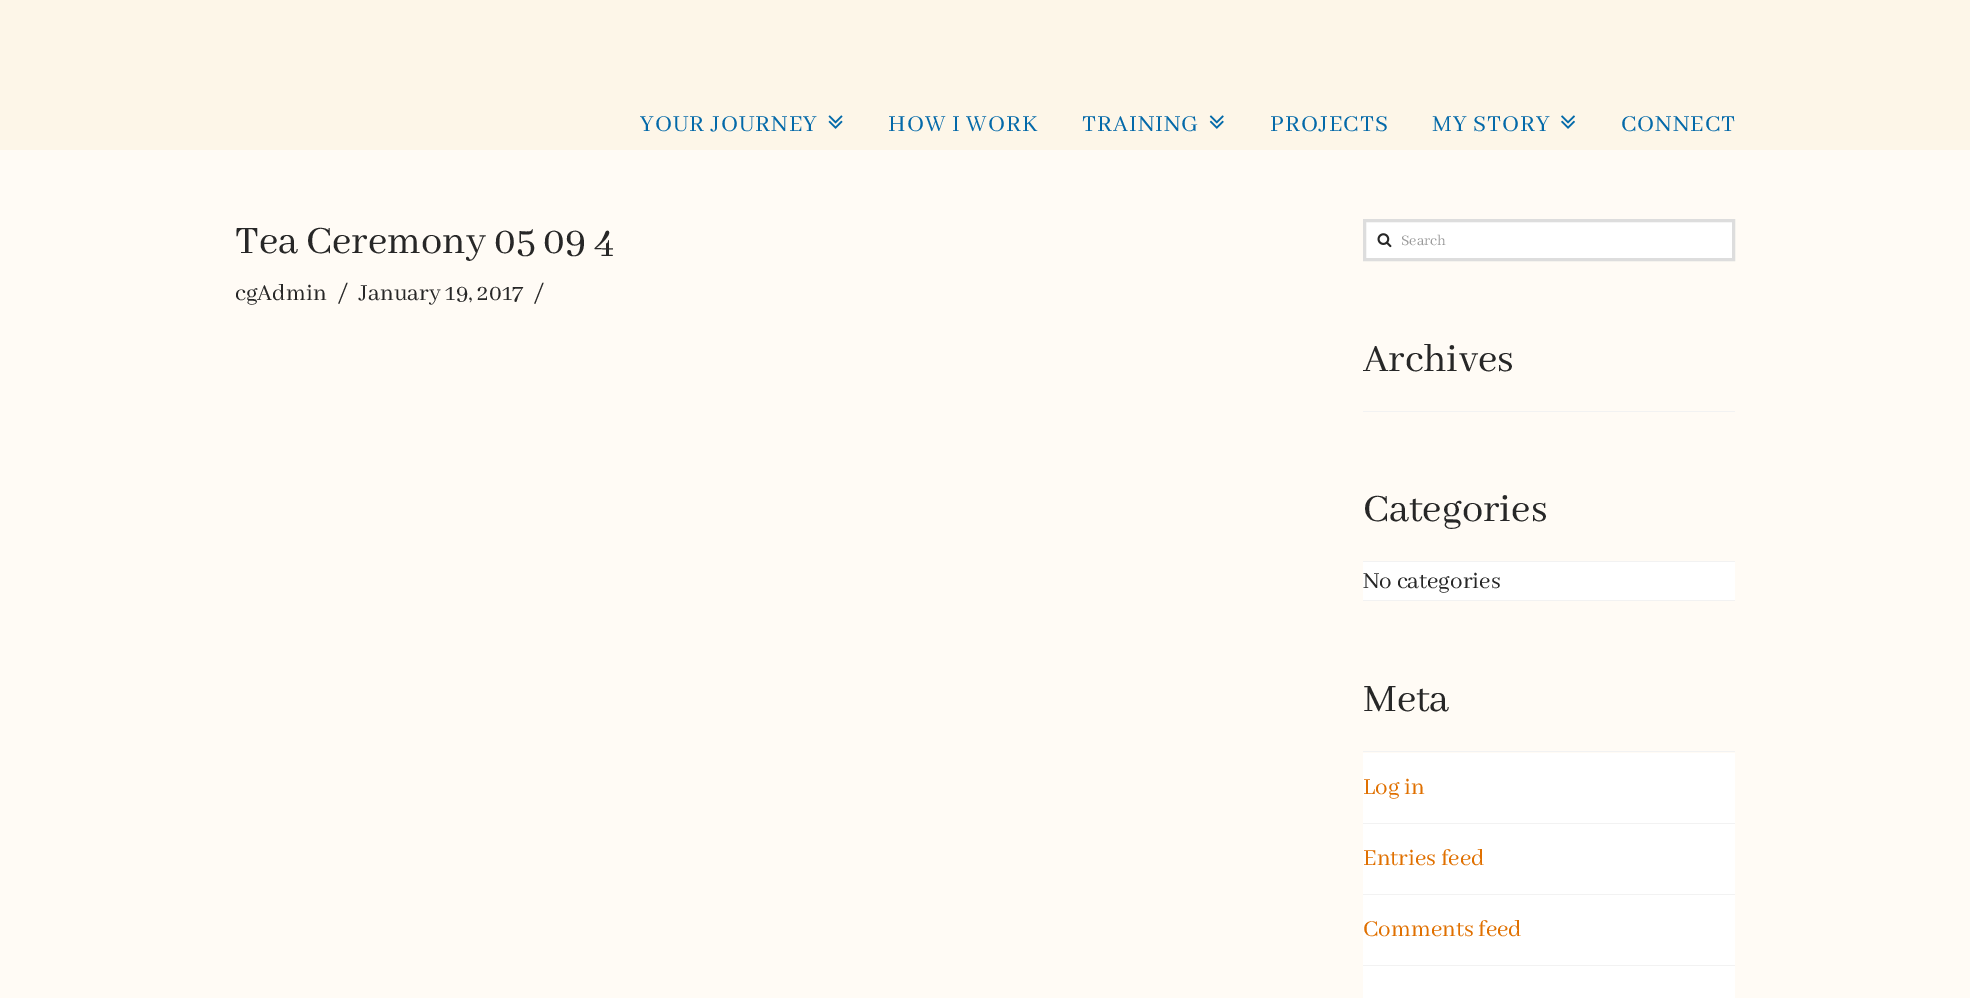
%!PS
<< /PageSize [1970 998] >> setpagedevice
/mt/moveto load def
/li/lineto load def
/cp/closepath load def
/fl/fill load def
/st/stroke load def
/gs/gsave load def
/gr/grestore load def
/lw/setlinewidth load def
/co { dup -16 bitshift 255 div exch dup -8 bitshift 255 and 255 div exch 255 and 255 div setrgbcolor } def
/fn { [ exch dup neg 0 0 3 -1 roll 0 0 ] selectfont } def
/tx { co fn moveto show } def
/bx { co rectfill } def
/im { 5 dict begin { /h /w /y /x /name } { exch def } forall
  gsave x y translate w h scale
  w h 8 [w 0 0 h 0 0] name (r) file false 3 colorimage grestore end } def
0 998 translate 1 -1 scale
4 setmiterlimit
0 0 1970 998 16#FFFBF5 bx
0 0 1970 150 16#FDF6E8 bx
(media/1.raw) 828 115 15 14 im
(media/2.raw) 1209 115 15 14 im
(media/3.raw) 1561 115 14 14 im
16#FFFFFF co
1364.5 220.5 mt 1733.5 220.5 li 1733.5 259.5 li 1364.5 259.5 li cp gs fl gr
16#DDDDDD co
3 lw
st
(media/4.raw) 1377 233 15 15 im
1363 411 372 1 16#F2F2F2 bx
1363 600 372 1 16#F2F2F2 bx
1363 562 372 38 16#FFFFFF bx
1363 561 372 1 16#F2F2F2 bx
1363 751 372 1 16#F2F2F2 bx
1363 753 372 70 16#FFFFFF bx
1363 823 372 1 16#F2F2F2 bx
1363 824 372 70 16#FFFFFF bx
1363 894 372 1 16#F2F2F2 bx
1363 895 372 70 16#FFFFFF bx
1363 965 372 1 16#F2F2F2 bx
1363 966 372 32 16#FFFFFF bx
/AbhayaLibre-Regular 25 fn
16#0369A9 co
640 131 mt 1 0 (YOUR JOURNEY) ashow
888 131 mt 1 0 (HOW I WORK) ashow
1082 131 mt 1 0 (TRAINING) ashow
1270 131 mt 1 0 (PROJECTS) ashow
1432 131 mt 1 0 (MY STORY) ashow
1621 131 mt 1 0 (CONNECT) ashow
(Tea Ceremony 05 09 4) 235 253 /AbhayaLibre-Regular 42.5 16#272727 tx
(cgAdmin) 235 300 /AbhayaLibre-Regular 25 16#272727 tx
(/) 338 300 /AbhayaLibre-Regular 25 16#272727 tx
(January 19, 2017) 359 300 /AbhayaLibre-Regular 25 16#272727 tx
(/) 534 300 /AbhayaLibre-Regular 25 16#272727 tx
(Search) 1401 245 /AbhayaLibre-Regular 16 16#999999 tx
(Archives) 1363 371 /AbhayaLibre-Regular 42.5 16#272727 tx
(Categories) 1363 521 /AbhayaLibre-Regular 42.5 16#272727 tx
(No categories) 1363 588 /AbhayaLibre-Regular 25 16#272727 tx
(Meta) 1363 711 /AbhayaLibre-Regular 42.5 16#272727 tx
(Log in) 1363 794 /AbhayaLibre-Regular 25 16#E07000 tx
(Entries feed) 1363 865 /AbhayaLibre-Regular 25 16#E07000 tx
(Comments feed) 1363 936 /AbhayaLibre-Regular 25 16#E07000 tx
showpage
